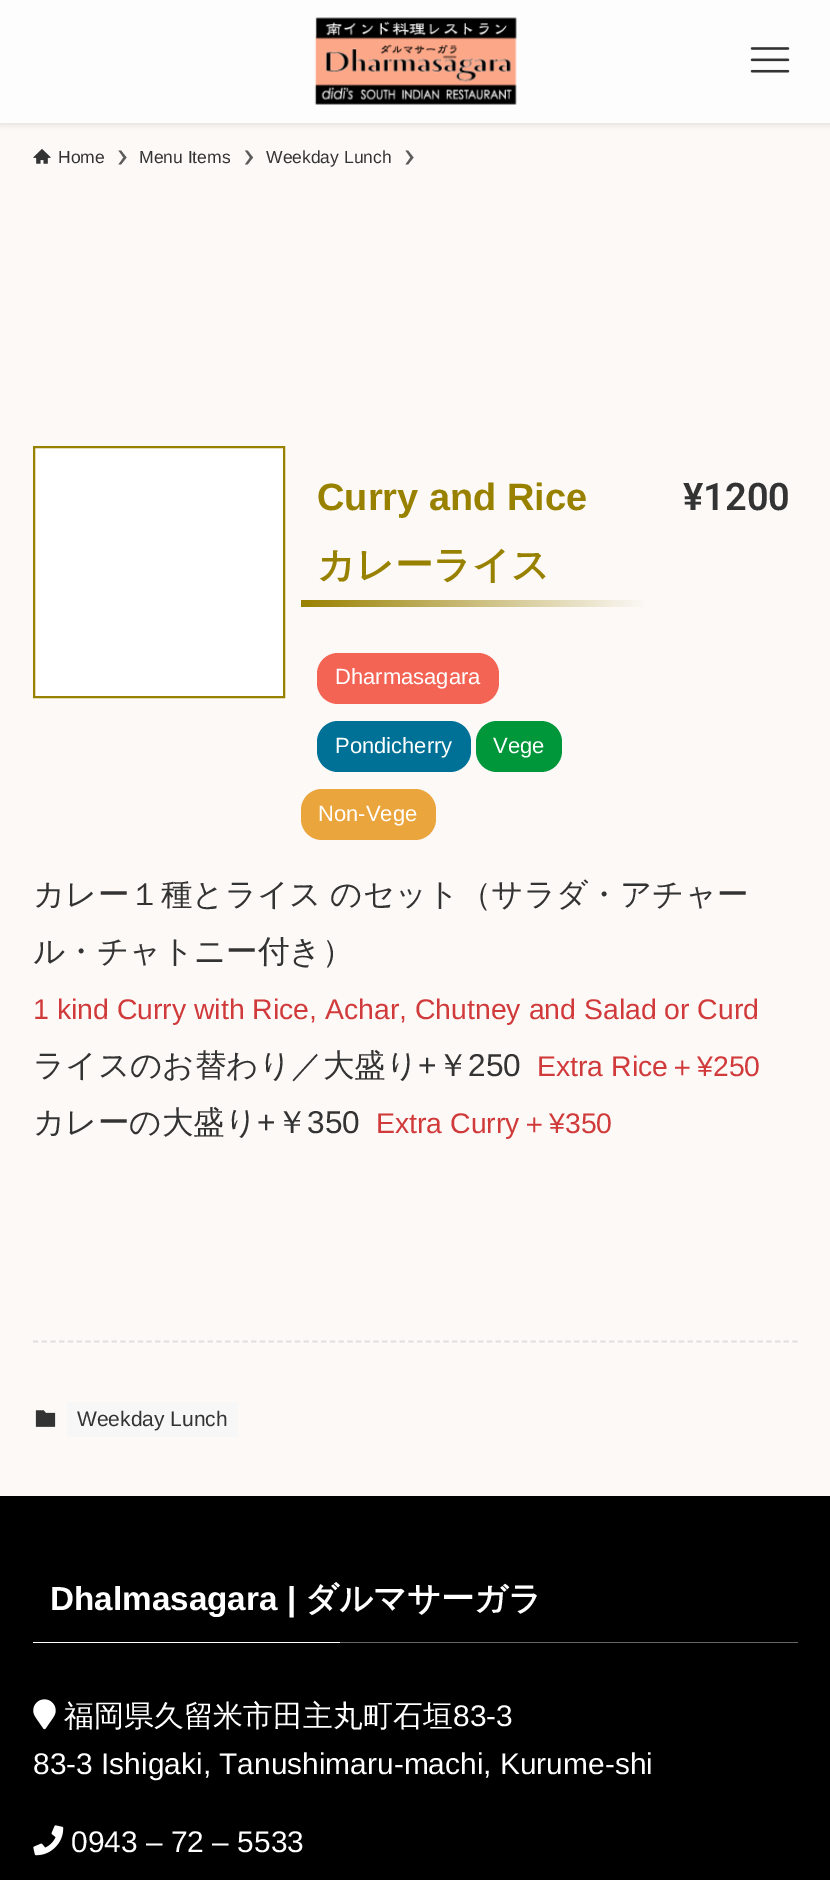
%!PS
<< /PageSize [830 1880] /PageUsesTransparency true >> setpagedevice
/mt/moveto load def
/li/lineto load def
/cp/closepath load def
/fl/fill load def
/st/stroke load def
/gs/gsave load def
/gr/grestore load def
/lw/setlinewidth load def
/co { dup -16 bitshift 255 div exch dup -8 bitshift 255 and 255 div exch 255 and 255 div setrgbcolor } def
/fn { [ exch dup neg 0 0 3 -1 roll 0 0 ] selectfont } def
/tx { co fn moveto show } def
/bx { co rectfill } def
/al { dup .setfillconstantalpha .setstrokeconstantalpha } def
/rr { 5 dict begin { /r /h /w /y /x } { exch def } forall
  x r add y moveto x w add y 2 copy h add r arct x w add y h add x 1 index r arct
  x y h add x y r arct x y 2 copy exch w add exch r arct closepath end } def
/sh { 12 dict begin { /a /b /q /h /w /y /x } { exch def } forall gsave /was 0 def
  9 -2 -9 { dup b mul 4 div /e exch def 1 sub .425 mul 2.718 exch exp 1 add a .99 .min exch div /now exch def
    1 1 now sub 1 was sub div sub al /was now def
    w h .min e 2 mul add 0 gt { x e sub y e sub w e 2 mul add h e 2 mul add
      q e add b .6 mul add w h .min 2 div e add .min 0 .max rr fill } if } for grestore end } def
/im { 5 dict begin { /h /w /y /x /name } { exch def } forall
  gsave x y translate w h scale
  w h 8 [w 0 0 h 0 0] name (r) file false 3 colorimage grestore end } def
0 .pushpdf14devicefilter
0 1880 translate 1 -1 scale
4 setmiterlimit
0 0 830 1880 16#FCF9F7 bx
16#000000 co
0 2 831 122 0 3.5 .12 sh
0 0 830 123 16#FDFDFD bx
(media/1.raw) 314 17 203 88 im
(media/2.raw) 750 47 40 26 im
(media/3.raw) 33 148 18 16 im
16#5B5B5A co
121 150.5 mt 118.5 150.5 li 123.5 157.5 li 118.5 164.5 li 121 164.5 li 126.5 157.5 li cp fl
247.5 150.5 mt 245 150.5 li 250 157.5 li 245 164.5 li 247.5 164.5 li 253 157.5 li cp fl
408 150.5 mt 405.5 150.5 li 410.5 157.5 li 405.5 164.5 li 408 164.5 li 413.5 157.5 li cp fl
16#FFFFFF co
34 447 mt 284 447 li 284 697 li 34 697 li cp gs fl gr
16#998100 co
2 lw
st
gs 301 600 mt 646 600 li 646 607 li 301 607 li cp clip newpath
<< /ShadingType 2 /ColorSpace /DeviceRGB /Coords [301 604 646 604] /Extend [true true] /Function << /FunctionType 2 /Domain [0 1] /C0 [.6 .506 0] /C1 [.988 .976 .969] /N 1 >> >> shfill gr
16#F46455 co
317 653 182 51 21 rr fl
16#007196 co
317 721 154 51 21 rr fl
16#00963A co
476 721 86 51 21 rr fl
16#EBA53D co
301 789 135 51 21 rr fl
16#E2E0DF co
1.8 lw
[5.25 3.48] 0 setdash
33 1341.5 mt 798 1341.5 li st
(media/4.raw) 35 1410 21 17 im
16#F7F7F7 co
67 1402 171 35 2 rr fl
0 1496 830 384 16#000000 bx
33 1642 307 1 16#FFFFFF bx
340 1642 458 1 16#646464 bx
(media/5.raw) 33 1699 23 31 im
(media/6.raw) 33 1825 31 31 im
(Home) 58 163 /LiberationSans-Regular 17.5 16#333333 tx
(Menu Items) 139 163 /LiberationSans-Regular 17.5 16#333333 tx
(Weekday Lunch) 266 163 /LiberationSans-Regular 17.5 16#333333 tx
(Curry and Rice) 317 510 /LiberationSans-Bold 38 16#998100 tx
(カレーライス) 317 578 /WenQuanYiZenHei-Bold 38 16#998100 tx
(¥1200) 683 510 /Roboto-SemiBold 38 16#333333 tx
(Dharmasagara) 335 684 /LiberationSans-Regular 22 16#FFFFFF tx
(Pondicherry) 335 753 /LiberationSans-Regular 22 16#FFFFFF tx
(Vege) 493 753 /LiberationSans-Regular 22 16#FFFFFF tx
(Non-Vege) 318 821 /LiberationSans-Regular 22 16#FFFFFF tx
/WenQuanYiZenHei-Medium 31.6 fn
16#333333 co
33 905 mt -1 0 32 (カレー１種とライス のセット（サラダ・アチャー) widthshow
(ル・チャトニー付き）) 33 962 /WenQuanYiZenHei-Medium 31.6 16#333333 tx
(1 kind Curry with Rice, Achar, Chutney and Salad or Curd) 33 1019 /LiberationSans-Regular 28.4 16#D13A3A tx
(ライスのお替わり／大盛り) 33 1076 /WenQuanYiZenHei-Medium 31.6 16#333333 tx
(+) 418 1076 /LiberationSans-Regular 31.6 16#333333 tx
(￥) 437 1076 /WenQuanYiZenHei-Medium 31.6 16#333333 tx
(250) 468 1076 /LiberationSans-Regular 31.6 16#333333 tx
(Extra Rice) 537 1076 /LiberationSans-Regular 28.4 16#D13A3A tx
(＋) 668 1076 /WenQuanYiZenHei-Medium 28.4 16#D13A3A tx
(¥250) 697 1076 /LiberationSans-Regular 28.4 16#D13A3A tx
(カレーの大盛り) 33 1133 /WenQuanYiZenHei-Medium 31.6 16#333333 tx
(+) 257 1133 /LiberationSans-Regular 31.6 16#333333 tx
(￥) 276 1133 /WenQuanYiZenHei-Medium 31.6 16#333333 tx
(350) 307 1133 /LiberationSans-Regular 31.6 16#333333 tx
(Extra Curry) 376 1133 /LiberationSans-Regular 28.4 16#D13A3A tx
(＋) 520 1133 /WenQuanYiZenHei-Medium 28.4 16#D13A3A tx
(¥350) 549 1133 /LiberationSans-Regular 28.4 16#D13A3A tx
(Weekday Lunch) 77 1426 /LiberationSans-Regular 21 16#333333 tx
(Dhalmasagara |) 50 1610 /LiberationSans-Bold 33.25 16#FFFFFF tx
(ダルマサーガラ) 305 1610 /WenQuanYiZenHei-Bold 33.25 16#FFFFFF tx
(福岡県久留米市田主丸町石垣) 64 1726 /WenQuanYiZenHei-Medium 29.9 16#FFFFFF tx
(83-3) 453 1726 /LiberationSans-Regular 29.9 16#FFFFFF tx
(83-3 Ishigaki, Tanushimaru-machi, Kurume-shi) 33 1774 /LiberationSans-Regular 29.9 16#FFFFFF tx
(0943 – 72 – 5533) 71 1852 /LiberationSans-Regular 29.9 16#FFFFFF tx
.poppdf14devicefilter showpage
